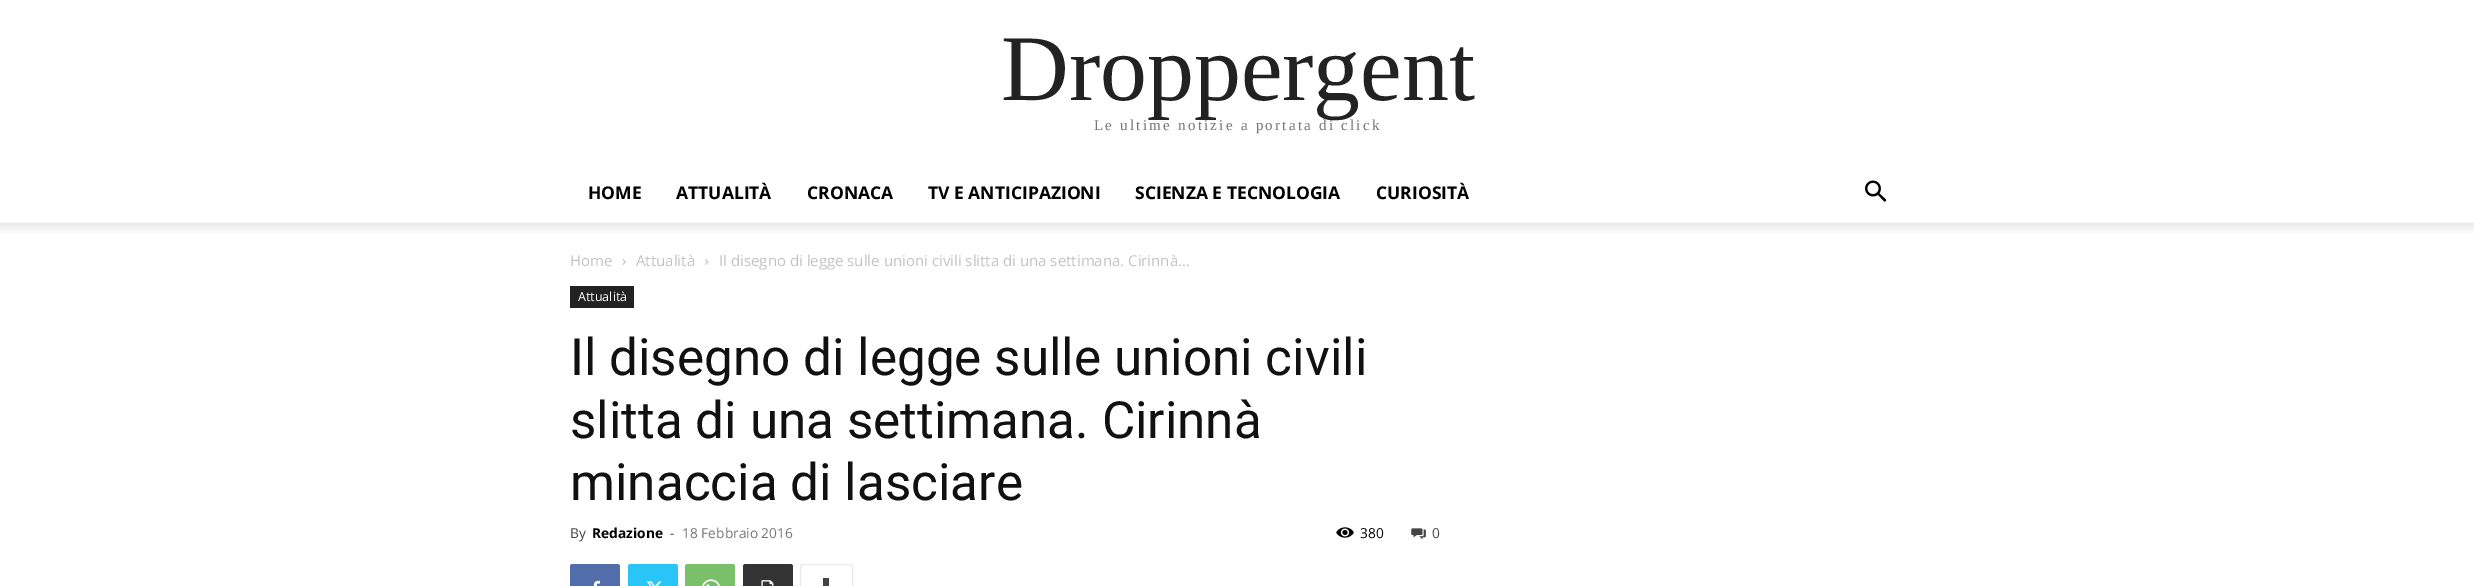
%!PS
<< /PageSize [2474 586] >> setpagedevice
/mt/moveto load def
/fl/fill load def
/st/stroke load def
/co { dup -16 bitshift 255 div exch dup -8 bitshift 255 and 255 div exch 255 and 255 div setrgbcolor } def
/fn { [ exch dup neg 0 0 3 -1 roll 0 0 ] selectfont } def
/tx { co fn moveto show } def
/bx { co rectfill } def
/rr { 5 dict begin { /r /h /w /y /x } { exch def } forall
  x r add y moveto x w add y 2 copy h add r arct x w add y h add x 1 index r arct
  x y h add x y r arct x y 2 copy exch w add exch r arct closepath end } def
/im { 5 dict begin { /h /w /y /x /name } { exch def } forall
  gsave x y translate w h scale
  w h 8 [w 0 0 h 0 0] name (r) file false 3 colorimage grestore end } def
0 586 translate 1 -1 scale
4 setmiterlimit
0 0 2474 586 16#FFFFFF bx
(media/1.raw) 1865 180 22 22 im
(media/2.raw) 0 222 2474 11 im
(media/3.raw) 622 259 4 6 im
(media/4.raw) 705 259 4 6 im
570 286 64 22 16#222222 bx
(media/5.raw) 1336 527 18 11 im
(media/6.raw) 1411 528 15 12 im
16#516EAB co
570 564 50 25 2.5 rr fl
(media/7.raw) 593 580 7 6 im
16#29C5F6 co
628 564 50 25 2.5 rr fl
(media/8.raw) 646 581 16 5 im
16#7BBF6A co
685 564 50 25 2.5 rr fl
(media/9.raw) 702 579 18 7 im
16#333333 co
743 564 50 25 2.5 rr fl
(media/10.raw) 761 580 13 6 im
16#E9E9E9 co
800.5 564.5 52 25 2 rr st
823 578 6 8 16#444444 bx
(Droppergent) 1001 100 /LiberationSerif-Regular 93.75 16#222222 tx
/LiberationSerif-Regular 15 fn
16#767676 co
1094 130 mt 2.25 0 (Le ultime notizie a portata di click) ashow
(HOME) 588 199 /OpenSans-Bold 17.5 16#000000 tx
(ATTUALITÀ) 676 199 /OpenSans-Bold 17.5 16#000000 tx
(CRONACA) 807 199 /OpenSans-Bold 17.5 16#000000 tx
(TV E ANTICIPAZIONI) 928 199 /OpenSans-Bold 17.5 16#000000 tx
(SCIENZA E TECNOLOGIA) 1135 199 /OpenSans-Bold 17.5 16#000000 tx
(CURIOSITÀ) 1376 199 /OpenSans-Bold 17.5 16#000000 tx
(Home) 570 266 /OpenSans-Regular 15 16#C3C3C3 tx
(Attualità) 636 266 /OpenSans-Regular 15 16#C3C3C3 tx
(Il disegno di legge sulle unioni civili slitta di una settimana. Cirinnà...) 719 266 /OpenSans-Regular 15 16#C3C3C3 tx
(Attualità) 578 301 /OpenSans-Regular 12.5 16#FFFFFF tx
(Il disegno di legge sulle unioni civili) 570 375 /Roboto-Regular 51.25 16#111111 tx
(slitta di una settimana. Cirinnà) 570 438 /Roboto-Regular 51.25 16#111111 tx
(minaccia di lasciare) 570 500 /Roboto-Regular 51.25 16#111111 tx
(By) 570 538 /OpenSans-Regular 13.75 16#444444 tx
(Redazione) 592 538 /OpenSans-Bold 13.75 16#000000 tx
(-) 670 538 /OpenSans-Regular 13.75 16#444444 tx
(18 Febbraio 2016) 682 538 /OpenSans-Regular 13.75 16#767676 tx
(380) 1360 538 /OpenSans-Regular 13.75 16#000000 tx
(0) 1432 538 /OpenSans-Regular 13.75 16#444444 tx
showpage
